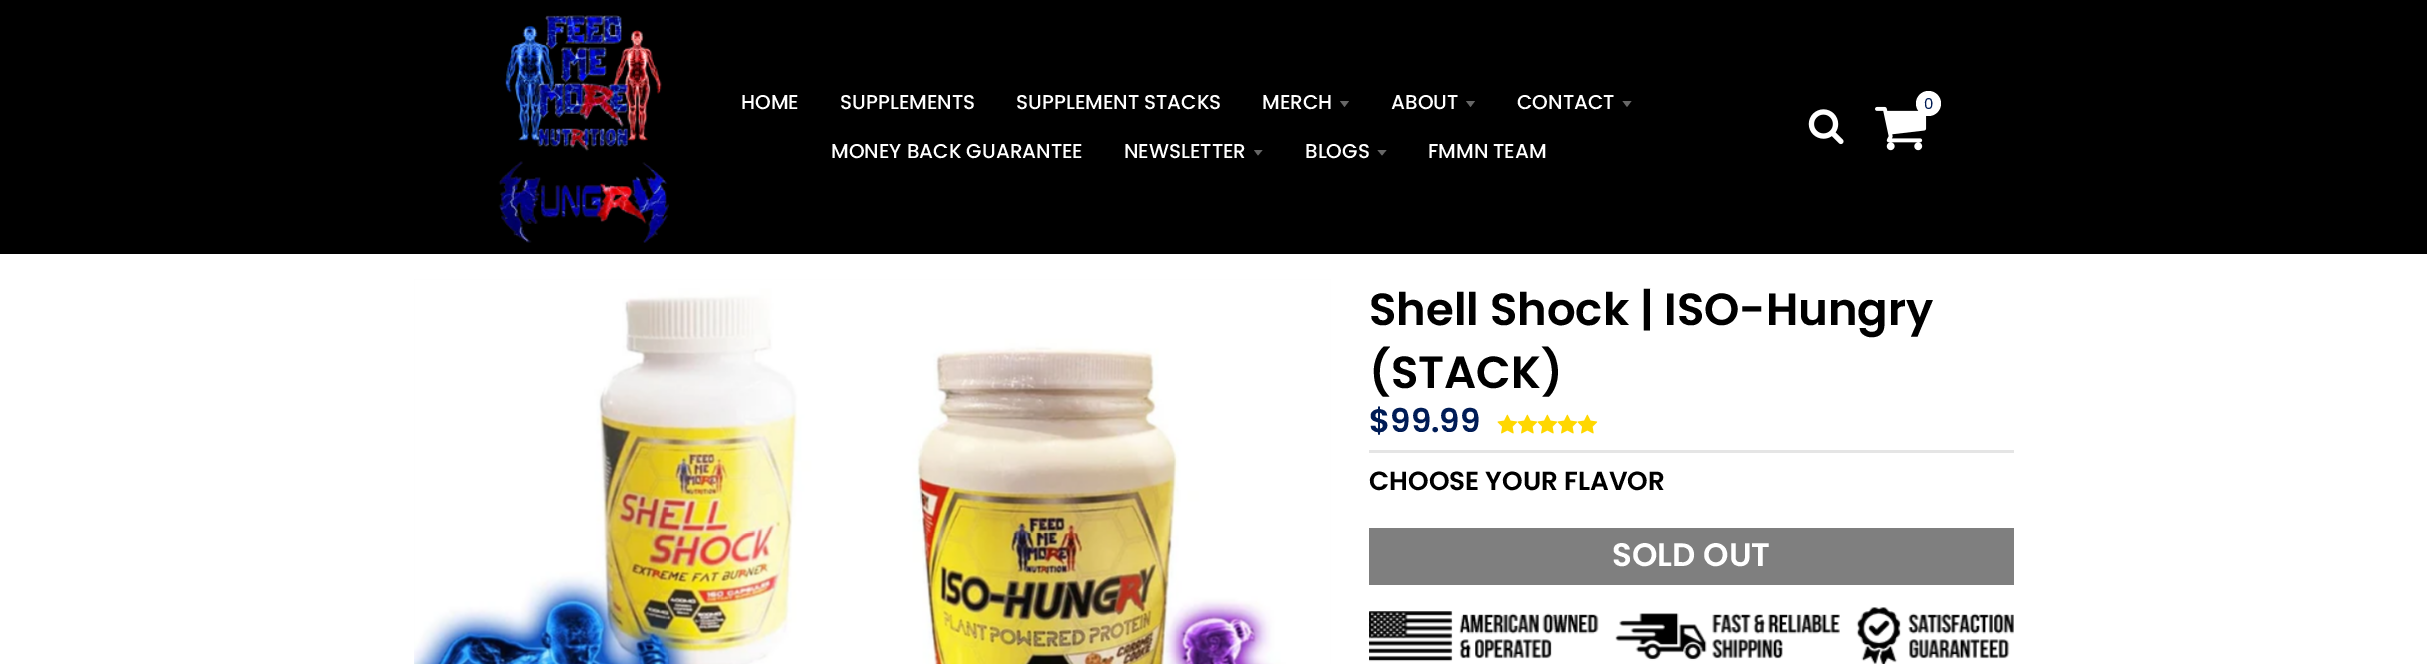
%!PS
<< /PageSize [2427 664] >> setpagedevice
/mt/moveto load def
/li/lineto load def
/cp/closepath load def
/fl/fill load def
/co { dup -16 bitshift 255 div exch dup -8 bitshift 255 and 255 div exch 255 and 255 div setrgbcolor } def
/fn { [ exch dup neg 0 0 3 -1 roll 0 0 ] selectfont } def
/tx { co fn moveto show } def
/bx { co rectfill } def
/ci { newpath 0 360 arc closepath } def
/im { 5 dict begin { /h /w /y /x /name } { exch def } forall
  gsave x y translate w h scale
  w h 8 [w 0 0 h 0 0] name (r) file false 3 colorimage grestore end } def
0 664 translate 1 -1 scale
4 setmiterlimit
0 0 2427 664 16#FFFFFF bx
0 0 2427 254 16#000000 bx
(media/1.raw) 498 15 171 228 im
16#666666 co
1340 101 mt 1344.5 107 li 1349 101 li cp fl
1466 101 mt 1470.5 107 li 1475 101 li cp fl
1622.5 101 mt 1627 107 li 1631.5 101 li cp fl
1254 150 mt 1258 155.5 li 1262.5 150 li cp fl
1377.5 150 mt 1382 155.5 li 1386.5 150 li cp fl
(media/2.raw) 1875 106 52 45 im
16#FFFFFF co
1928.5 103.5 12.5 ci fl
(media/3.raw) 1808 109 36 36 im
(media/4.raw) 414 279 917 385 im
1369 450 645 3 16#E5E5E5 bx
(media/5.raw) 1497 414 21 20 im
(media/6.raw) 1517 414 21 20 im
(media/6.raw) 1537 414 21 20 im
(media/6.raw) 1557 414 21 20 im
(media/6.raw) 1577 414 21 20 im
1369 528 645 57 16#7F7F7F bx
(media/7.raw) 1369 607 645 57 im
(HOME) 741 109 /Poppins-Medium 20 16#FFFFFF tx
(SUPPLEMENTS) 840 109 /Poppins-Medium 20 16#FFFFFF tx
(SUPPLEMENT STACKS) 1016 109 /Poppins-Medium 20 16#FFFFFF tx
(MERCH) 1262 109 /Poppins-Medium 20 16#FFFFFF tx
(ABOUT) 1391 109 /Poppins-Medium 20 16#FFFFFF tx
(CONTACT) 1517 109 /Poppins-Medium 20 16#FFFFFF tx
(MONEY BACK GUARANTEE) 831 158 /Poppins-Medium 20 16#FFFFFF tx
(NEWSLETTER) 1124 158 /Poppins-Medium 20 16#FFFFFF tx
(BLOGS) 1305 158 /Poppins-Medium 20 16#FFFFFF tx
(FMMN TEAM) 1428 158 /Poppins-Medium 20 16#FFFFFF tx
(0) 1924 109 /Poppins-Regular 15 16#001C56 tx
(Shell Shock | ISO-Hungry) 1369 325 /Poppins-SemiBold 45 16#000000 tx
(\(STACK\)) 1369 388 /Poppins-SemiBold 45 16#000000 tx
($99.99) 1369 432 /Poppins-SemiBold 32.5 16#001C56 tx
(CHOOSE YOUR FLAVOR) 1369 490 /Poppins-SemiBold 26.25 16#000000 tx
(SOLD OUT) 1612 566 /Poppins-SemiBold 32.5 16#FFFFFF tx
showpage
